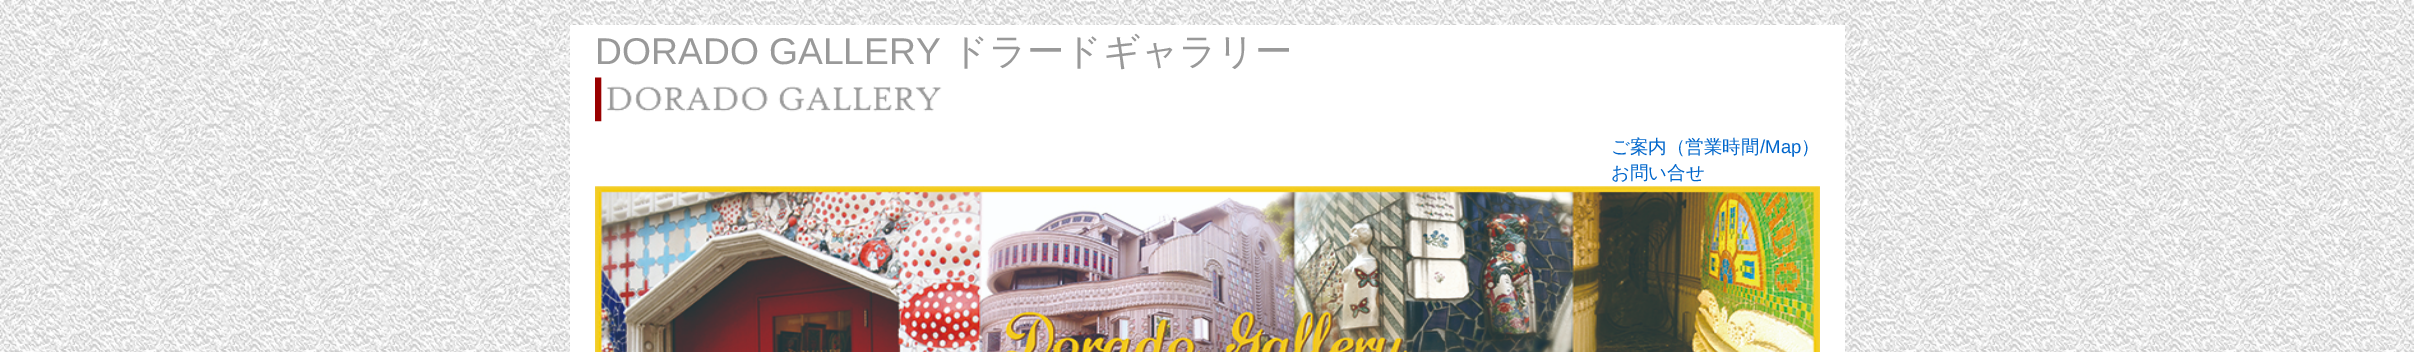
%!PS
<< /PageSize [2414 352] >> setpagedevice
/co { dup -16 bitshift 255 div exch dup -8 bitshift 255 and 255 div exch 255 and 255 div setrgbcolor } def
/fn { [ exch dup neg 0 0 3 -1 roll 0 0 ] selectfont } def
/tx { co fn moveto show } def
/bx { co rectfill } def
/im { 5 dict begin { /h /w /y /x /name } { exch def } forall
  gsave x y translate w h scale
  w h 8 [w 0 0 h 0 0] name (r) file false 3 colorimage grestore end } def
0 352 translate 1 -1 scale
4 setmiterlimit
0 0 2414 352 16#FFFFFF bx
(media/1.raw) 0 0 2414 352 im
570 25 1275 327 16#FFFFFF bx
(media/2.raw) 595 77 347 45 im
(media/3.raw) 595 186 1225 166 im
(DORADO GALLERY) 595 64 /LiberationSans-Regular 37.25 16#999999 tx
(ドラードギャラリー) 951 64 /WenQuanYiZenHei-Medium 37.25 16#999999 tx
(ご案内（営業時間) 1611 153 /WenQuanYiZenHei-Medium 18.5 16#0066CC tx
(/Map) 1760 153 /LiberationSans-Regular 18.5 16#0066CC tx
(）) 1801 153 /WenQuanYiZenHei-Medium 18.5 16#0066CC tx
(お問い合せ) 1611 179 /WenQuanYiZenHei-Medium 18.5 16#0066CC tx
showpage
